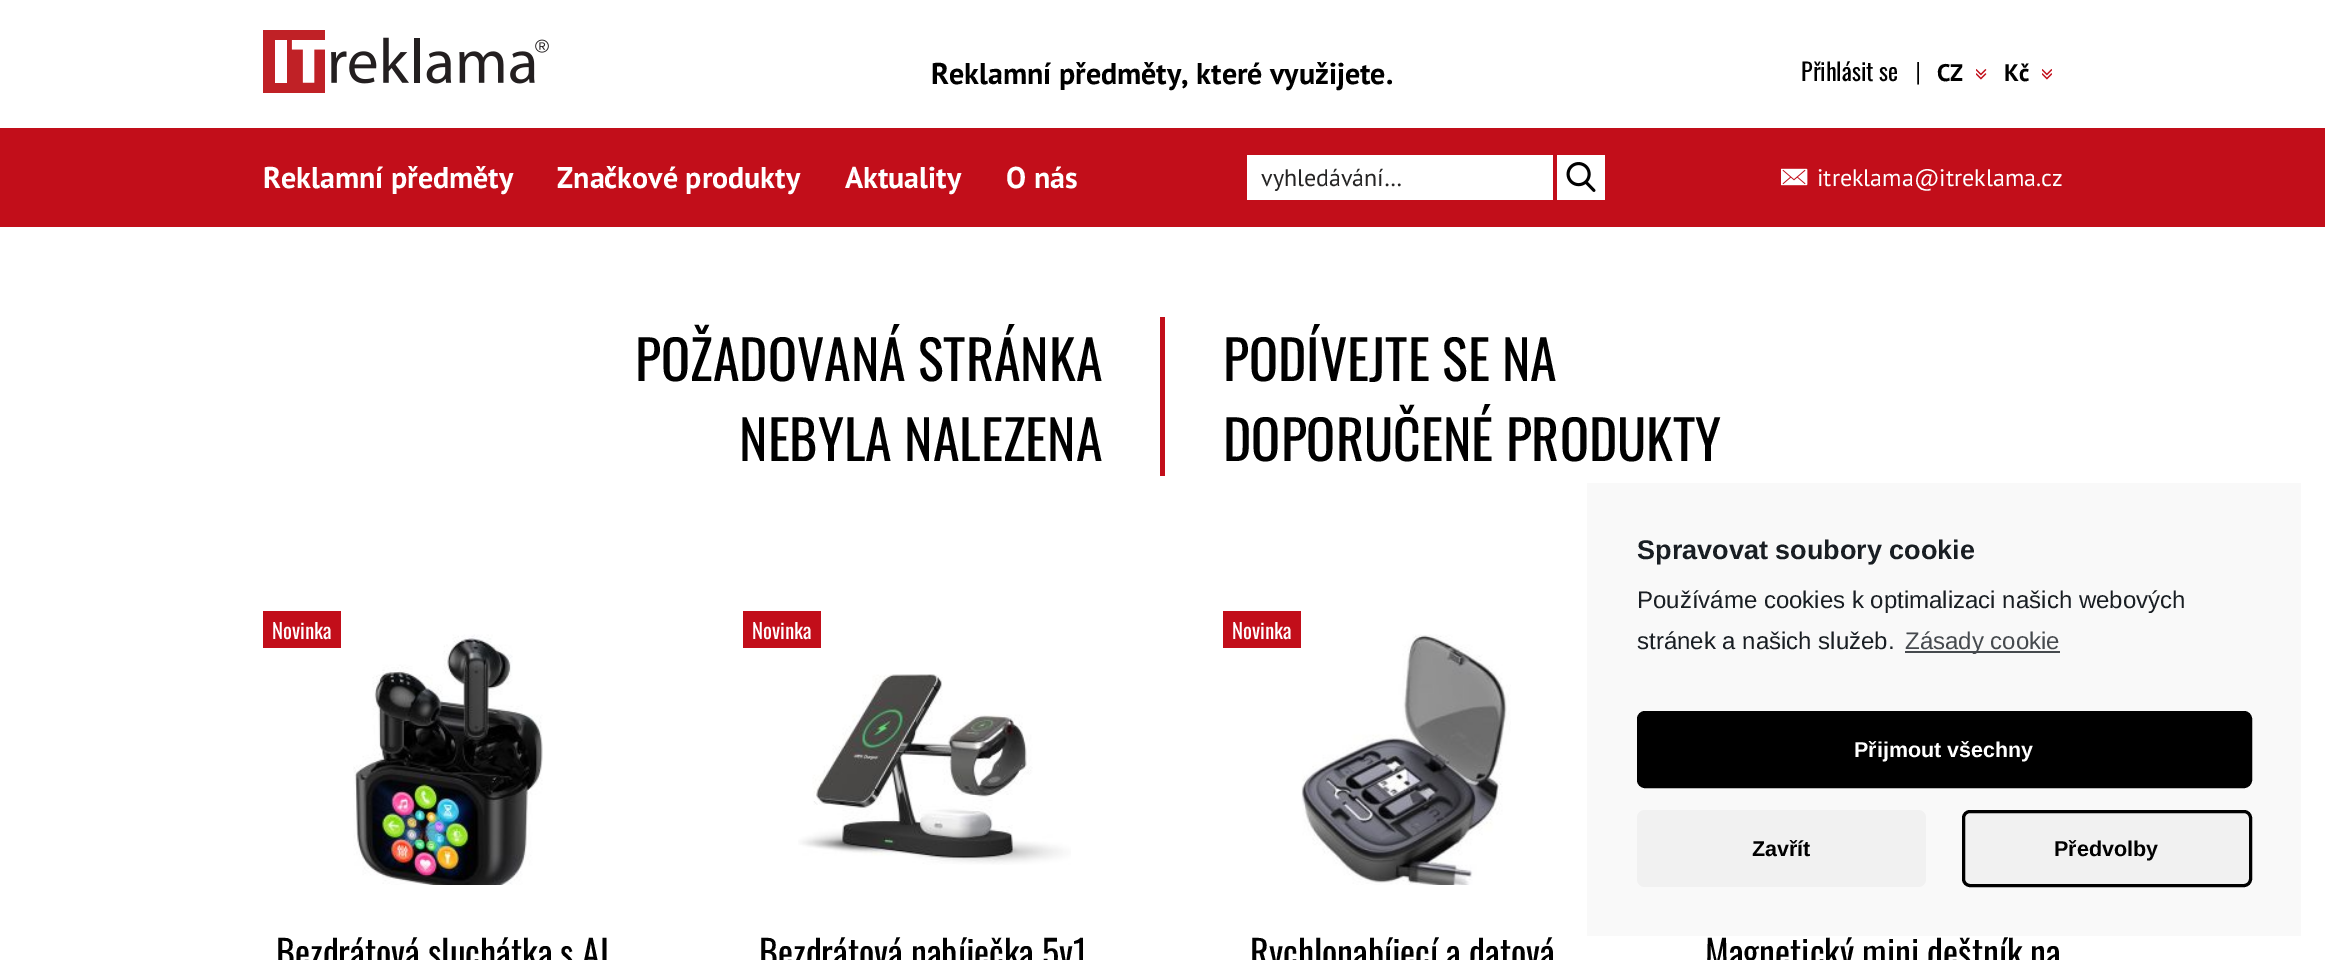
%!PS
<< /PageSize [2325 960] >> setpagedevice
/fl/fill load def
/st/stroke load def
/gs/gsave load def
/gr/grestore load def
/lw/setlinewidth load def
/co { dup -16 bitshift 255 div exch dup -8 bitshift 255 and 255 div exch 255 and 255 div setrgbcolor } def
/fn { [ exch dup neg 0 0 3 -1 roll 0 0 ] selectfont } def
/tx { co fn moveto show } def
/bx { co rectfill } def
/rr { 5 dict begin { /r /h /w /y /x } { exch def } forall
  x r add y moveto x w add y 2 copy h add r arct x w add y h add x 1 index r arct
  x y h add x y r arct x y 2 copy exch w add exch r arct closepath end } def
/im { 5 dict begin { /h /w /y /x /name } { exch def } forall
  gsave x y translate w h scale
  w h 8 [w 0 0 h 0 0] name (r) file false 3 colorimage grestore end } def
0 960 translate 1 -1 scale
4 setmiterlimit
0 0 2325 960 16#FFFFFF bx
(media/1.raw) 263 30 286 63 im
(media/2.raw) 1976 69 11 11 im
(media/3.raw) 2042 69 10 11 im
0 128 2325 99 16#C20E1A bx
1247 155 306 45 16#FFFFFF bx
1557 155 48 45 16#FFFFFF bx
(media/4.raw) 1566 162 30 30 im
(media/5.raw) 1781 168 27 18 im
1160 317 5 159 16#C20E1A bx
263 611 78 37 16#C20E1A bx
(media/6.raw) 353 634 190 251 im
743 611 78 37 16#C20E1A bx
(media/7.raw) 798 674 273 191 im
1223 611 78 37 16#C20E1A bx
(media/8.raw) 1301 634 210 251 im
1587 483 714 453 16#F9F9F9 bx
1905 651 155 2 16#464A4E bx
16#000000 co
1638.5 712.5 612 74 6.5 rr gs fl gr
3 lw
st
16#F1F1F1 co
1637 810 289 77 8 rr fl
1963.5 811.5 287 74 6.5 rr gs fl gr
16#000000 co
st
(Reklamní předměty, které využijete.) 931 84 /PTSans-Bold 30 16#000000 tx
(Přihlásit se) 1801 81 /Oswald-Regular 24 16#000000 tx
(|) 1915 81 /PTSans-Regular 27 16#000000 tx
(CZ) 1937 81 /PTSans-Bold 24 16#000000 tx
(Kč) 2004 81 /PTSans-Bold 24 16#000000 tx
(Reklamní předměty) 263 188 /PTSans-Bold 30 16#FFFFFF tx
(Značkové produkty) 557 188 /PTSans-Bold 30 16#FFFFFF tx
(Aktuality) 845 188 /PTSans-Bold 30 16#FFFFFF tx
(O nás) 1006 188 /PTSans-Bold 30 16#FFFFFF tx
(vyhledávání…) 1261 186 /PTSans-Regular 24 16#252424 tx
(itreklama@itreklama.cz) 1817 186 /PTSans-Regular 24 16#FFFFFF tx
(POŽADOVANÁ STRÁNKA) 635 381 /Oswald-Regular 54 16#000000 tx
(NEBYLA NALEZENA) 739 461 /Oswald-Regular 54 16#000000 tx
(PODÍVEJTE SE NA) 1223 381 /Oswald-Regular 54 16#000000 tx
(DOPORUČENÉ PRODUKTY) 1223 461 /Oswald-Regular 54 16#000000 tx
(Novinka) 272 639 /Oswald-Regular 21 16#FFFFFF tx
(Bezdrátová sluchátka s AI) 276 967 /Oswald-Regular 36 16#000000 tx
(Novinka) 752 639 /Oswald-Regular 21 16#FFFFFF tx
(Bezdrátová nabíječka 5v1) 759 967 /Oswald-Regular 36 16#000000 tx
(Novinka) 1232 639 /Oswald-Regular 21 16#FFFFFF tx
(Rychlonabíjecí a datová) 1250 967 /Oswald-Regular 36 16#000000 tx
(Magnetický mini deštník na) 1705 967 /Oswald-Regular 36 16#000000 tx
(Spravovat soubory cookie) 1637 559 /LiberationSans-Bold 27 16#191E23 tx
(Používáme cookies k optimalizaci našich webových) 1637 608 /LiberationSans-Regular 24 16#191E23 tx
(stránek a našich služeb.) 1637 649 /LiberationSans-Regular 24 16#191E23 tx
(Zásady cookie) 1905 649 /LiberationSans-Regular 24 16#464A4E tx
(Přijmout všechny) 1854 757 /LiberationSans-Bold 21.5 16#FFFFFF tx
(Zavřít) 1752 856 /LiberationSans-Bold 21.5 16#000000 tx
(Předvolby) 2054 856 /LiberationSans-Bold 21.5 16#000000 tx
showpage
